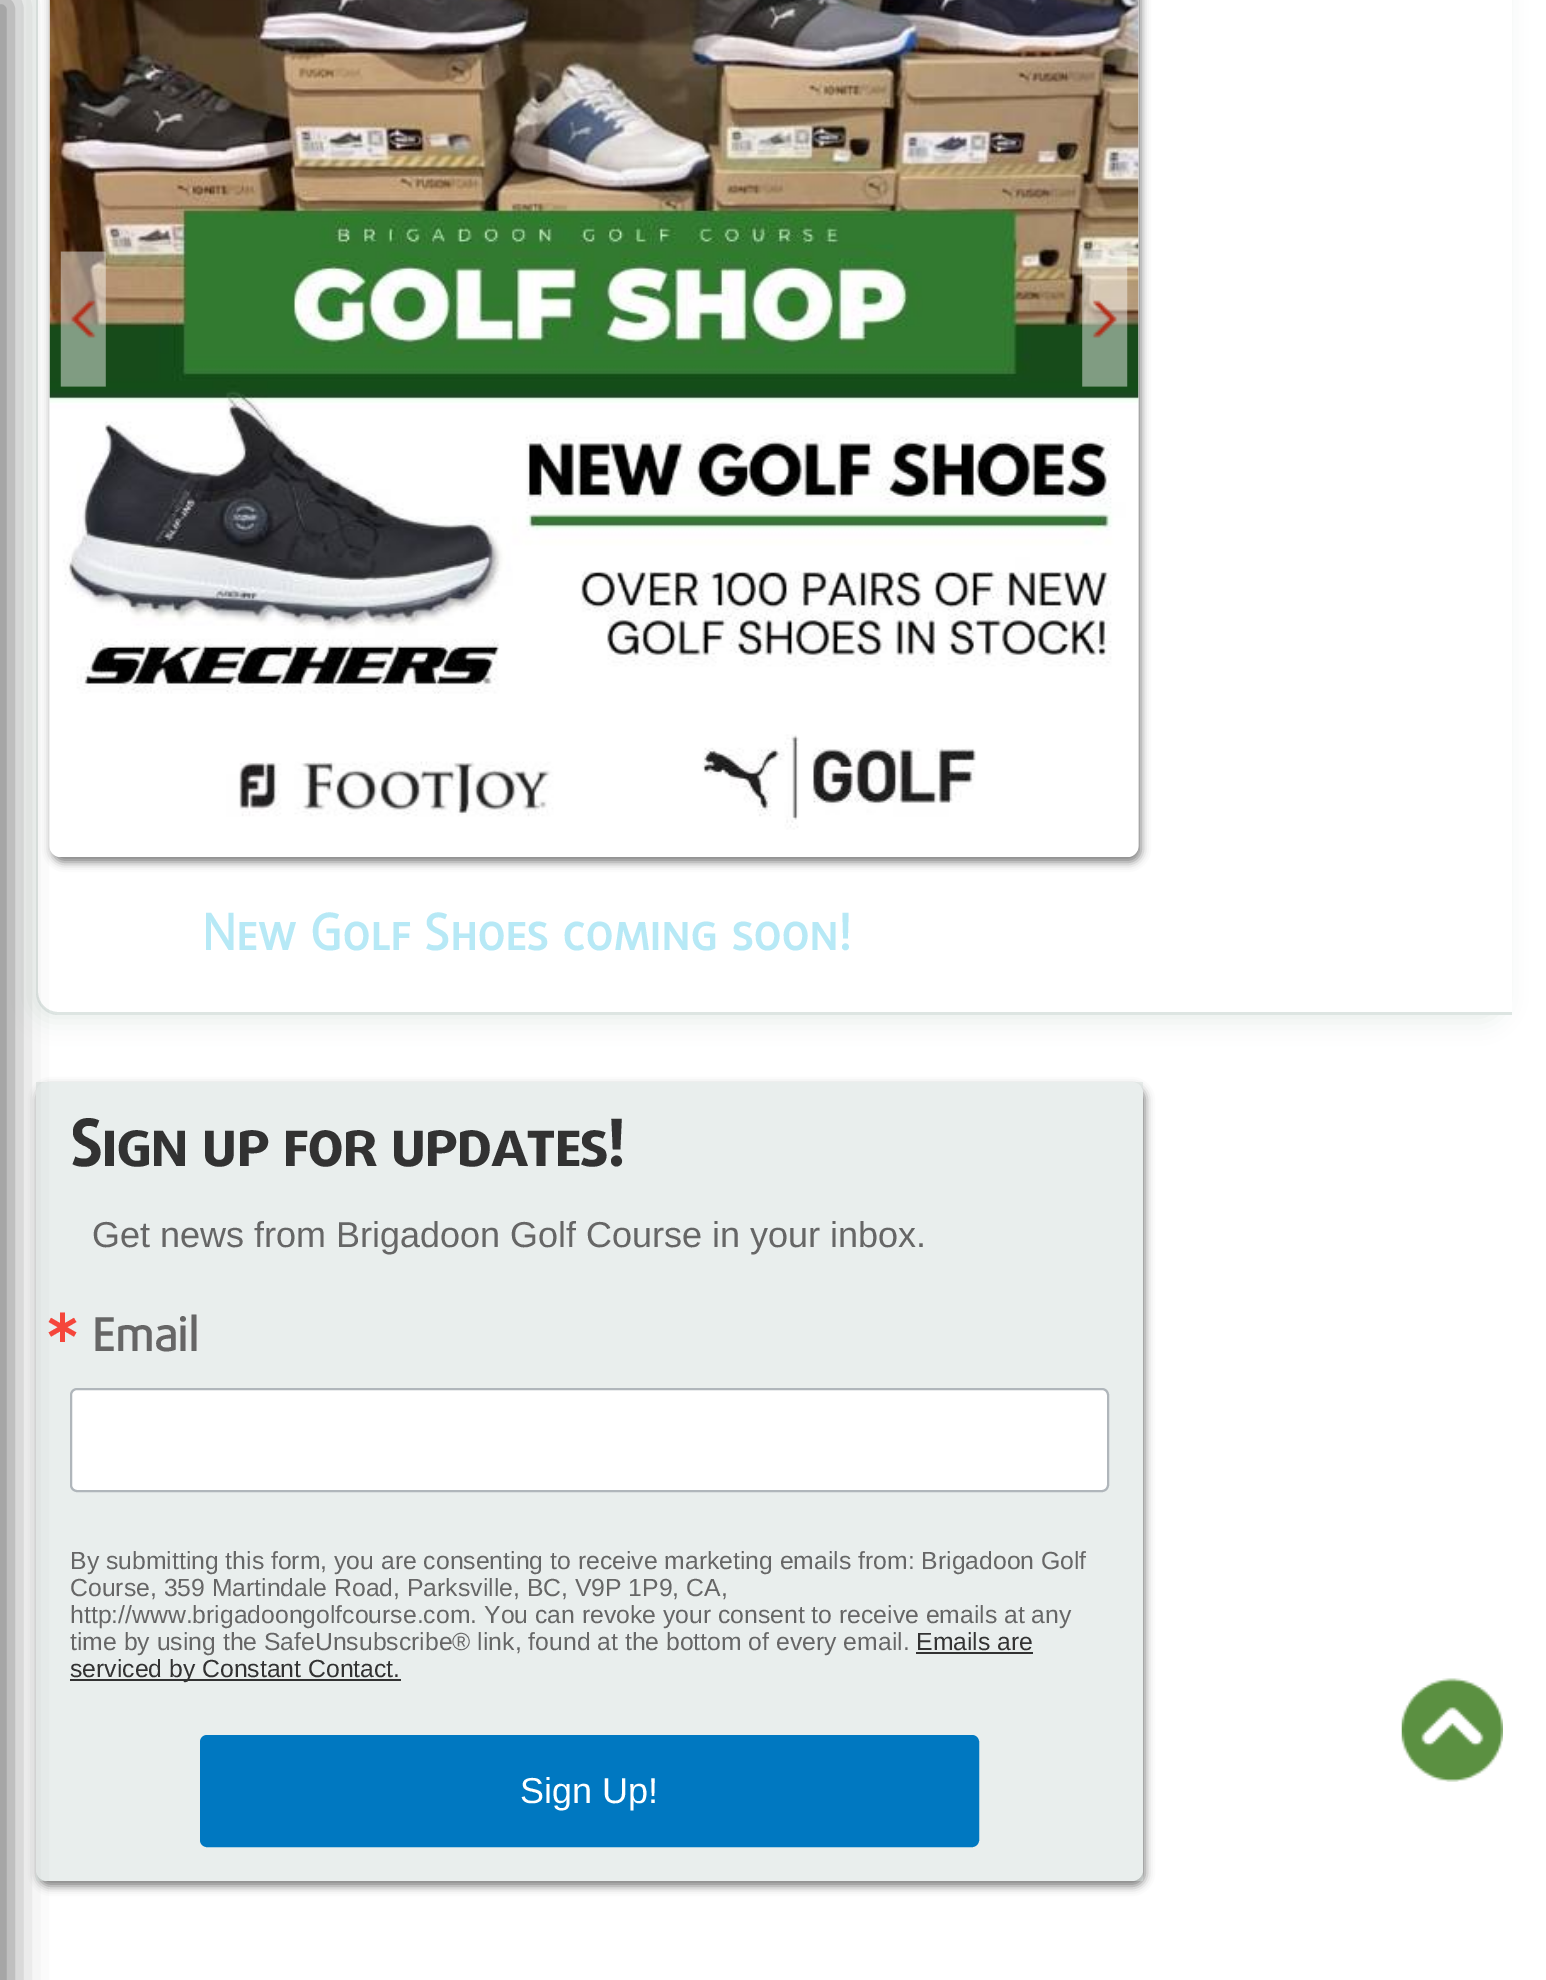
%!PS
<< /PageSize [1546 1980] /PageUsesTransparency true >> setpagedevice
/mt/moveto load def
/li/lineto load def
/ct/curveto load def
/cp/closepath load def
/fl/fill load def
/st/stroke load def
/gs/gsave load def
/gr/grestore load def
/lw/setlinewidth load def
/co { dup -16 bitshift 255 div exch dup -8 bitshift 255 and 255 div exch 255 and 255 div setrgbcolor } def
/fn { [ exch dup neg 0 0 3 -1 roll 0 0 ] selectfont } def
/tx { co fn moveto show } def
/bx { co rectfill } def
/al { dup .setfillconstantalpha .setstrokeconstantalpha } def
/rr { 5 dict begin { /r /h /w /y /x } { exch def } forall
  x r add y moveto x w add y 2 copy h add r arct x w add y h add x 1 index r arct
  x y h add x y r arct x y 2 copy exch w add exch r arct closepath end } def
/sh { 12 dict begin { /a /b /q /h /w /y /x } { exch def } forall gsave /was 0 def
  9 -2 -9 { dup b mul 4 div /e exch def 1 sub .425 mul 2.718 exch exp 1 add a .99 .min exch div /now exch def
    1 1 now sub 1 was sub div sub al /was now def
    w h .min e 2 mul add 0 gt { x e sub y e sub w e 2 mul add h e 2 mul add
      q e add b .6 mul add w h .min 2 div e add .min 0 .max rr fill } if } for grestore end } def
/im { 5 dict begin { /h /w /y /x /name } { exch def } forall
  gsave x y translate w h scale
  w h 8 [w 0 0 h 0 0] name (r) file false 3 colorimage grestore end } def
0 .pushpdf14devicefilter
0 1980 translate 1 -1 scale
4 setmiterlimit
0 0 1546 1980 16#FFFFFF bx
gs
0 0 mt 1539 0 li 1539 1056 li 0 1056 li cp 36 -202 mt 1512 -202 li 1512 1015 li 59 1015 li 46.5 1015 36 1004.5 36 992 ct cp eoclip newpath
16#D4DEDB co
29 -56 1476 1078 23 11 .5 sh
gr
0.8 al
16#D4DEDB co
36 -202 mt 1512 -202 li 1512 1015 li 58 1015 li 46 1015 36 1005 36 992 ct cp 38 -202 mt 1512 -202 li 1512 1012 li 58 1012 li 47 1012 38 1003 38 992 ct cp eofill
1 al
16#000000 co
52 -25 1089 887 11 4.5 .5 sh
(media/3.raw) 49 0 1090 857 im
0.1 al
61 252 45 135 16#E3E3E3 bx
1 al
(media/1.raw) 60 251 46 136 im
16#000000 co
38 1087 1107 799 11 4.5 .5 sh
16#FFFFFF co
36 1082 1107 799 11 rr fl
0.5 al
36 1082 1107 799 16#D4DEDB bx
1 al
16#000000 co
-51 0 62 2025 0 17 .5 sh
0.1 al
1082 252 45 135 16#E3E3E3 bx
1 al
(media/2.raw) 1082 251 46 136 im
16#FFFFFF co
71 1389 1037 102 6 rr gs fl gr
16#B0B6BB co
2 lw
st
916 1652 117 2 16#323232 bx
70 1679 331 2 16#323232 bx
16#0078C1 co
201 1736 777 110 6 rr gs fl gr
st
(media/4.raw) 1401 1678 102 104 im
(New Golf Shoes coming soon!) 202 950 /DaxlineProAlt-Bold 49.5 16#B7E9F6 tx
/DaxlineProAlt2-Bold 65.25 fn
16#323232 co
70 1166 mt -2.25 0 (Sign up for updates!) ashow
(Get news from Brigadoon Golf Course in your inbox.) 92 1247 /LiberationSans-Regular 36 16#666666 tx
(∗) 43 1342 /DejaVuSans-Bold 45 16#F5463B tx
(Email) 92 1351 /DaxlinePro-Bold 45 16#666666 tx
(By submitting this form, you are consenting to receive marketing emails from: Brigadoon Golf) 70 1569 /LiberationSans-Regular 24.75 16#666666 tx
(Course, 359 Martindale Road, Parksville, BC, V9P 1P9, CA,) 70 1596 /LiberationSans-Regular 24.75 16#666666 tx
(http://www.brigadoongolfcourse.com. You can revoke your consent to receive emails at any) 70 1623 /LiberationSans-Regular 24.75 16#666666 tx
(time by using the SafeUnsubscribe® link, found at the bottom of every email.) 70 1650 /LiberationSans-Regular 24.75 16#666666 tx
(Emails are) 916 1650 /LiberationSans-Regular 24.75 16#323232 tx
(serviced by Constant Contact.) 70 1677 /LiberationSans-Regular 24.75 16#323232 tx
(Sign Up!) 520 1803 /LiberationSans-Regular 36 16#FFFFFF tx
.poppdf14devicefilter showpage
